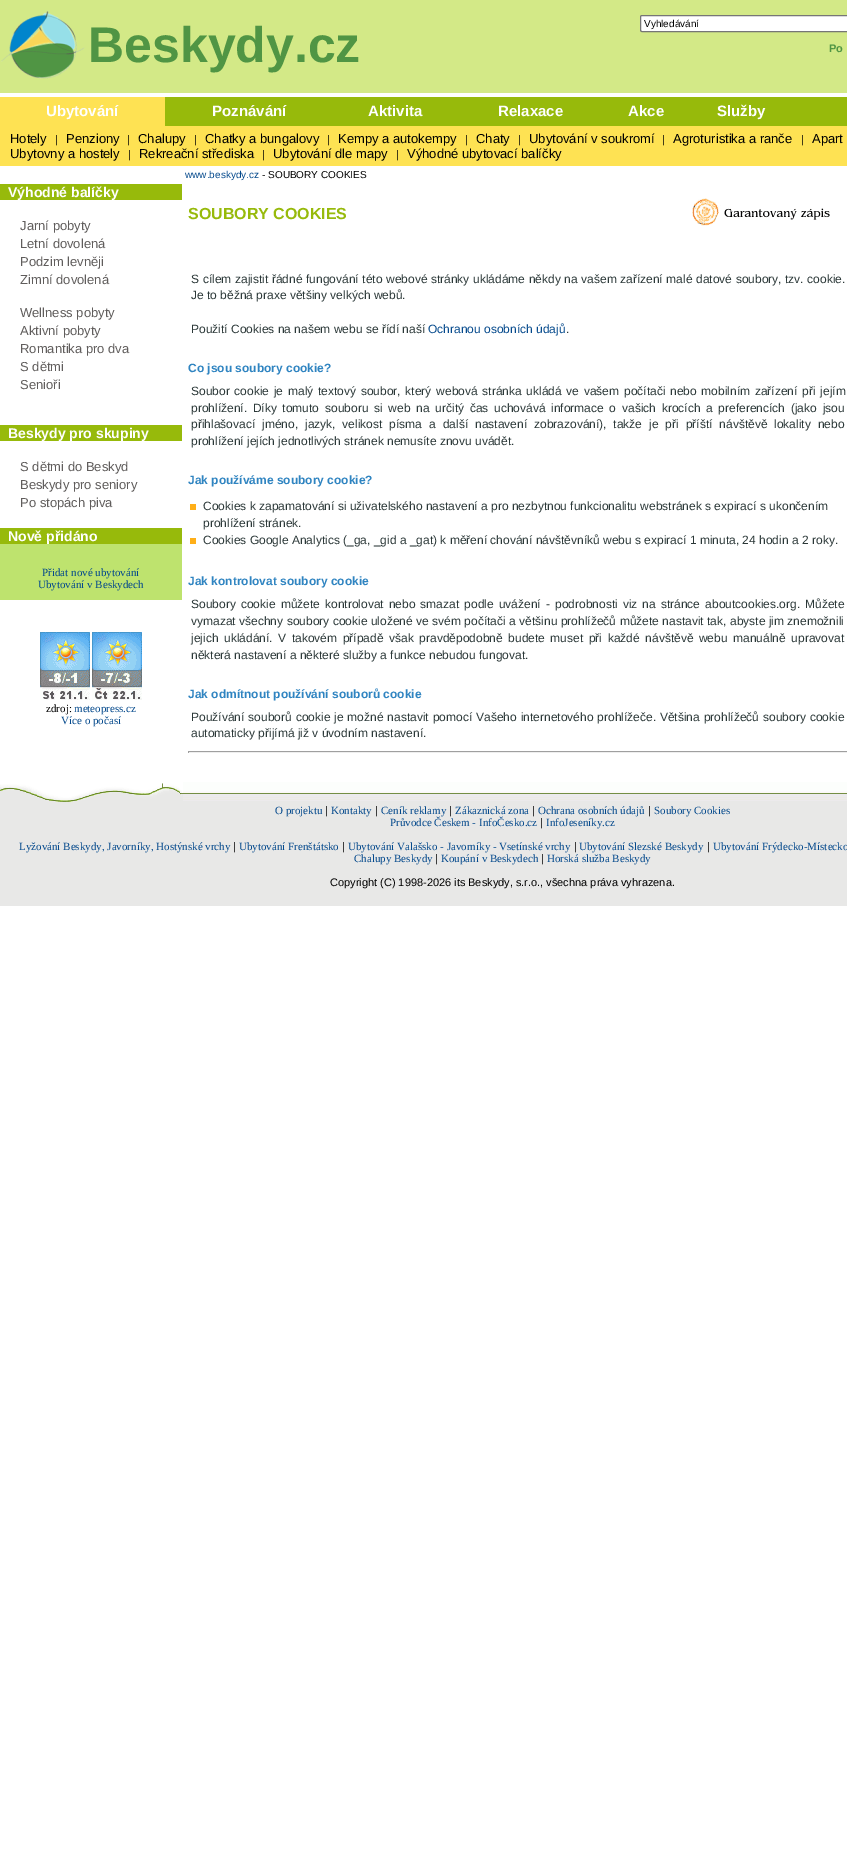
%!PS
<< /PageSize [847 1862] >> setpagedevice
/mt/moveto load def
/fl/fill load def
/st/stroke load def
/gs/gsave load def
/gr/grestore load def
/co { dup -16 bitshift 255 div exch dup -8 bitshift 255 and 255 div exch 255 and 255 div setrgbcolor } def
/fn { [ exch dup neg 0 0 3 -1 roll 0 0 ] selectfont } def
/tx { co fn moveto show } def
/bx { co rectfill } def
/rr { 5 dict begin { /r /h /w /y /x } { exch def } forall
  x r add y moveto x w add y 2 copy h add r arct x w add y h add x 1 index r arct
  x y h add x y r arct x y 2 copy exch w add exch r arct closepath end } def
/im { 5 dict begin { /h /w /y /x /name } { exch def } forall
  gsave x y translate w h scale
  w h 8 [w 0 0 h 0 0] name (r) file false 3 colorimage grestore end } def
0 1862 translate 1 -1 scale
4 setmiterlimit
0 0 847 1862 16#FFFFFF bx
0 0 847 93 16#D3E987 bx
(media/1.raw) 1 11 84 68 im
16#FFFFFF co
640.5 15.5 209 16 1.5 rr gs fl gr
16#767676 co
st
0 97 165 29 16#FEE253 bx
165 97 682 29 16#97BA0B bx
0 126 847 40 16#FEE253 bx
0 184 182 16 16#97BA0B bx
0 425 182 16 16#97BA0B bx
0 528 182 16 16#97BA0B bx
0 544 182 56 16#BEE36E bx
(media/2.raw) 40 632 50 68 im
(media/3.raw) 92 632 50 68 im
(media/4.raw) 692 198 138 28 im
190 504 6 6 16#FFAF18 bx
190 538 6 6 16#FFAF18 bx
188 751 659 1 16#9F9F9F bx
188 752 659 1 16#EEEEEE bx
188 751 1 2 16#9F9F9F bx
0 801 847 105 16#E8E8E7 bx
(media/5.raw) 0 782 183 20 im
(media/6.raw) 183 782 664 19 im
(Beskydy.cz) 88 62 /LiberationSans-Bold 50 16#509544 tx
(Vyhledávání) 644 27 /LiberationSans-Regular 10 16#000000 tx
(Po) 829 52 /LiberationSans-Bold 11 16#509544 tx
(Ubytování) 46 116 /LiberationSans-Bold 15 16#FFFFFF tx
(Poznávání) 212 116 /LiberationSans-Bold 15 16#FFFFFF tx
(Aktivita) 368 116 /LiberationSans-Bold 15 16#FFFFFF tx
(Relaxace) 498 116 /LiberationSans-Bold 15 16#FFFFFF tx
(Akce) 628 116 /LiberationSans-Bold 15 16#FFFFFF tx
(Služby) 717 116 /LiberationSans-Bold 15 16#FFFFFF tx
(Hotely) 10 143 /LiberationSans-Regular 13 16#000000 tx
(|) 55 143 /LiberationSans-Regular 11 16#000000 tx
(Penziony) 66 143 /LiberationSans-Regular 13 16#000000 tx
(|) 127 143 /LiberationSans-Regular 11 16#000000 tx
(Chalupy) 138 143 /LiberationSans-Regular 13 16#000000 tx
(|) 194 143 /LiberationSans-Regular 11 16#000000 tx
(Chatky a bungalovy) 205 143 /LiberationSans-Regular 13 16#000000 tx
(|) 327 143 /LiberationSans-Regular 11 16#000000 tx
(Kempy a autokempy) 338 143 /LiberationSans-Regular 13 16#000000 tx
(|) 465 143 /LiberationSans-Regular 11 16#000000 tx
(Chaty) 476 143 /LiberationSans-Regular 13 16#000000 tx
(|) 518 143 /LiberationSans-Regular 11 16#000000 tx
(Ubytování v soukromí) 529 143 /LiberationSans-Regular 13 16#000000 tx
(|) 662 143 /LiberationSans-Regular 11 16#000000 tx
(Agroturistika a ranče) 673 143 /LiberationSans-Regular 13 16#000000 tx
(|) 801 143 /LiberationSans-Regular 11 16#000000 tx
(Apart) 812 143 /LiberationSans-Regular 13 16#000000 tx
(Ubytovny a hostely) 10 158 /LiberationSans-Regular 13 16#000000 tx
(|) 128 158 /LiberationSans-Regular 11 16#000000 tx
(Rekreační střediska) 139 158 /LiberationSans-Regular 13 16#000000 tx
(|) 262 158 /LiberationSans-Regular 11 16#000000 tx
(Ubytování dle mapy) 273 158 /LiberationSans-Regular 13 16#000000 tx
(|) 396 158 /LiberationSans-Regular 11 16#000000 tx
(Výhodné ubytovací balíčky) 407 158 /LiberationSans-Regular 13 16#000000 tx
(Výhodné balíčky) 8 197 /LiberationSans-Bold 14 16#FFFFFF tx
(Jarní pobyty) 20 230 /LiberationSans-Regular 13 16#605D5C tx
(Letní dovolená) 20 248 /LiberationSans-Regular 13 16#605D5C tx
(Podzim levněji) 20 266 /LiberationSans-Regular 13 16#605D5C tx
(Zimní dovolená) 20 284 /LiberationSans-Regular 13 16#605D5C tx
(Wellness pobyty) 20 317 /LiberationSans-Regular 13 16#605D5C tx
(Aktivní pobyty) 20 335 /LiberationSans-Regular 13 16#605D5C tx
(Romantika pro dva) 20 353 /LiberationSans-Regular 13 16#605D5C tx
(S dětmi) 20 371 /LiberationSans-Regular 13 16#605D5C tx
(Senioři) 20 389 /LiberationSans-Regular 13 16#605D5C tx
(Beskydy pro skupiny) 8 438 /LiberationSans-Bold 14 16#FFFFFF tx
(S dětmi do Beskyd) 20 471 /LiberationSans-Regular 13 16#605D5C tx
(Beskydy pro seniory) 20 489 /LiberationSans-Regular 13 16#605D5C tx
(Po stopách piva) 20 507 /LiberationSans-Regular 13 16#605D5C tx
(Nově přidáno) 8 541 /LiberationSans-Bold 14 16#FFFFFF tx
(Přidat nové ubytování) 42 576 /LiberationSerif-Regular 11 16#04498C tx
(Ubytování v Beskydech) 38 588 /LiberationSerif-Regular 11 16#04498C tx
(zdroj:) 46 712 /LiberationSerif-Regular 11 16#000000 tx
(meteopress.cz) 74 712 /LiberationSerif-Regular 11 16#04498C tx
(Více o počasí) 61 724 /LiberationSerif-Regular 11 16#04498C tx
(www.beskydy.cz) 185 178 /LiberationSans-Regular 10 16#04498C tx
(- SOUBORY COOKIES) 262 178 /LiberationSans-Regular 10 16#000000 tx
(SOUBORY COOKIES) 188 219 /LiberationSans-Bold 16 16#97BA0B tx
/LiberationSans-Regular 12 fn
16#2B3838 co
191 283 mt .25 0 32 (S cílem zajistit řádné fungování této webové stránky ukládáme někdy na vašem zařízení malé datové soubory, tzv. cookie.) widthshow
(Je to běžná praxe většiny velkých webů.) 191 299 /LiberationSans-Regular 12 16#2B3838 tx
(Použití Cookies na našem webu se řídí naší) 191 333 /LiberationSans-Regular 12 16#2B3838 tx
(Ochranou osobních údajů) 428 333 /LiberationSans-Regular 12 16#04498C tx
(.) 566 333 /LiberationSans-Regular 12 16#2B3838 tx
(Co jsou soubory cookie?) 188 372 /LiberationSans-Bold 12 16#2F84C1 tx
/LiberationSans-Regular 12 fn
16#2B3838 co
191 395 mt 1.4 0 32 (Soubor cookie je malý textový soubor, který webová stránka ukládá ve vašem počítači nebo mobilním zařízení při jejím) widthshow
191 412 mt 2.4 0 32 (prohlížení. Díky tomuto souboru si web na určitý čas uchovává informace o vašich krocích a preferencích \(jako jsou) widthshow
191 428 mt 3.6 0 32 (přihlašovací jméno, jazyk, velikost písma a další nastavení zobrazování\), takže je při příští návštěvě lokality nebo) widthshow
(prohlížení jejích jednotlivých stránek nemusíte znovu uvádět.) 191 445 /LiberationSans-Regular 12 16#2B3838 tx
(Jak používáme soubory cookie?) 188 484 /LiberationSans-Bold 12 16#2F84C1 tx
(Cookies k zapamatování si uživatelského nastavení a pro nezbytnou funkcionalitu webstránek s expirací s ukončením) 203 510 /LiberationSans-Regular 12 16#2B3838 tx
(prohlížení stránek.) 203 527 /LiberationSans-Regular 12 16#2B3838 tx
(Cookies Google Analytics \(_ga, _gid a _gat\) k měření chování návštěvníků webu s expirací 1 minuta, 24 hodin a 2 roky.) 203 544 /LiberationSans-Regular 12 16#2B3838 tx
(Jak kontrolovat soubory cookie) 188 585 /LiberationSans-Bold 12 16#2F84C1 tx
/LiberationSans-Regular 12 fn
16#2B3838 co
191 608 mt 1.75 0 32 (Soubory cookie můžete kontrolovat nebo smazat podle uvážení - podrobnosti viz na stránce aboutcookies.org. Můžete) widthshow
191 625 mt .1 0 32 (vymazat všechny soubory cookie uložené ve svém počítači a většinu prohlížečů můžete nastavit tak, abyste jim znemožnili) widthshow
191 642 mt 2.25 0 32 (jejich ukládání. V takovém případě však pravděpodobně budete muset při každé návštěvě webu manuálně upravovat) widthshow
(některá nastavení a některé služby a funkce nebudou fungovat.) 191 659 /LiberationSans-Regular 12 16#2B3838 tx
(Jak odmítnout používání souborů cookie) 188 698 /LiberationSans-Bold 12 16#2F84C1 tx
/LiberationSans-Regular 12 fn
16#2B3838 co
191 721 mt .6 0 32 (Používání souborů cookie je možné nastavit pomocí Vašeho internetového prohlížeče. Většina prohlížečů soubory cookie) widthshow
(automaticky přijímá již v úvodním nastavení.) 191 737 /LiberationSans-Regular 12 16#2B3838 tx
(O projektu) 275 814 /LiberationSerif-Regular 11 16#04498C tx
(|) 325 814 /LiberationSans-Regular 11 16#000000 tx
(Kontakty) 331 814 /LiberationSerif-Regular 11 16#04498C tx
(|) 375 814 /LiberationSans-Regular 11 16#000000 tx
(Ceník reklamy) 381 814 /LiberationSerif-Regular 11 16#04498C tx
(|) 449 814 /LiberationSans-Regular 11 16#000000 tx
(Zákaznická zona) 455 814 /LiberationSerif-Regular 11 16#04498C tx
(|) 532 814 /LiberationSans-Regular 11 16#000000 tx
(Ochrana osobních údajů) 538 814 /LiberationSerif-Regular 11 16#04498C tx
(|) 648 814 /LiberationSans-Regular 11 16#000000 tx
(Soubory Cookies) 654 814 /LiberationSerif-Regular 11 16#04498C tx
(Průvodce Českem - InfoČesko.cz) 390 826 /LiberationSerif-Regular 11 16#04498C tx
(|) 540 826 /LiberationSans-Regular 11 16#000000 tx
(InfoJeseníky.cz) 546 826 /LiberationSerif-Regular 11 16#04498C tx
(Lyžování Beskydy, Javorníky, Hostýnské vrchy) 19 850 /LiberationSerif-Regular 11 16#04498C tx
(|) 233 850 /LiberationSans-Regular 11 16#000000 tx
(Ubytování Frenštátsko) 239 850 /LiberationSerif-Regular 11 16#04498C tx
(|) 342 850 /LiberationSans-Regular 11 16#000000 tx
(Ubytování Valašsko - Javorníky - Vsetínské vrchy) 348 850 /LiberationSerif-Regular 11 16#04498C tx
(|) 574 850 /LiberationSans-Regular 11 16#000000 tx
(Ubytování Slezské Beskydy) 579 850 /LiberationSerif-Regular 11 16#04498C tx
(|) 707 850 /LiberationSans-Regular 11 16#000000 tx
(Ubytování Frýdecko-Místecko) 713 850 /LiberationSerif-Regular 11 16#04498C tx
(Chalupy Beskydy) 354 862 /LiberationSerif-Regular 11 16#04498C tx
(|) 435 862 /LiberationSans-Regular 11 16#000000 tx
(Koupání v Beskydech) 441 862 /LiberationSerif-Regular 11 16#04498C tx
(|) 541 862 /LiberationSans-Regular 11 16#000000 tx
(Horská služba Beskydy) 547 862 /LiberationSerif-Regular 11 16#04498C tx
(Copyright \(C\) 1998-2026 its Beskydy, s.r.o., všechna práva vyhrazena.) 330 886 /LiberationSans-Regular 11 16#000000 tx
showpage
